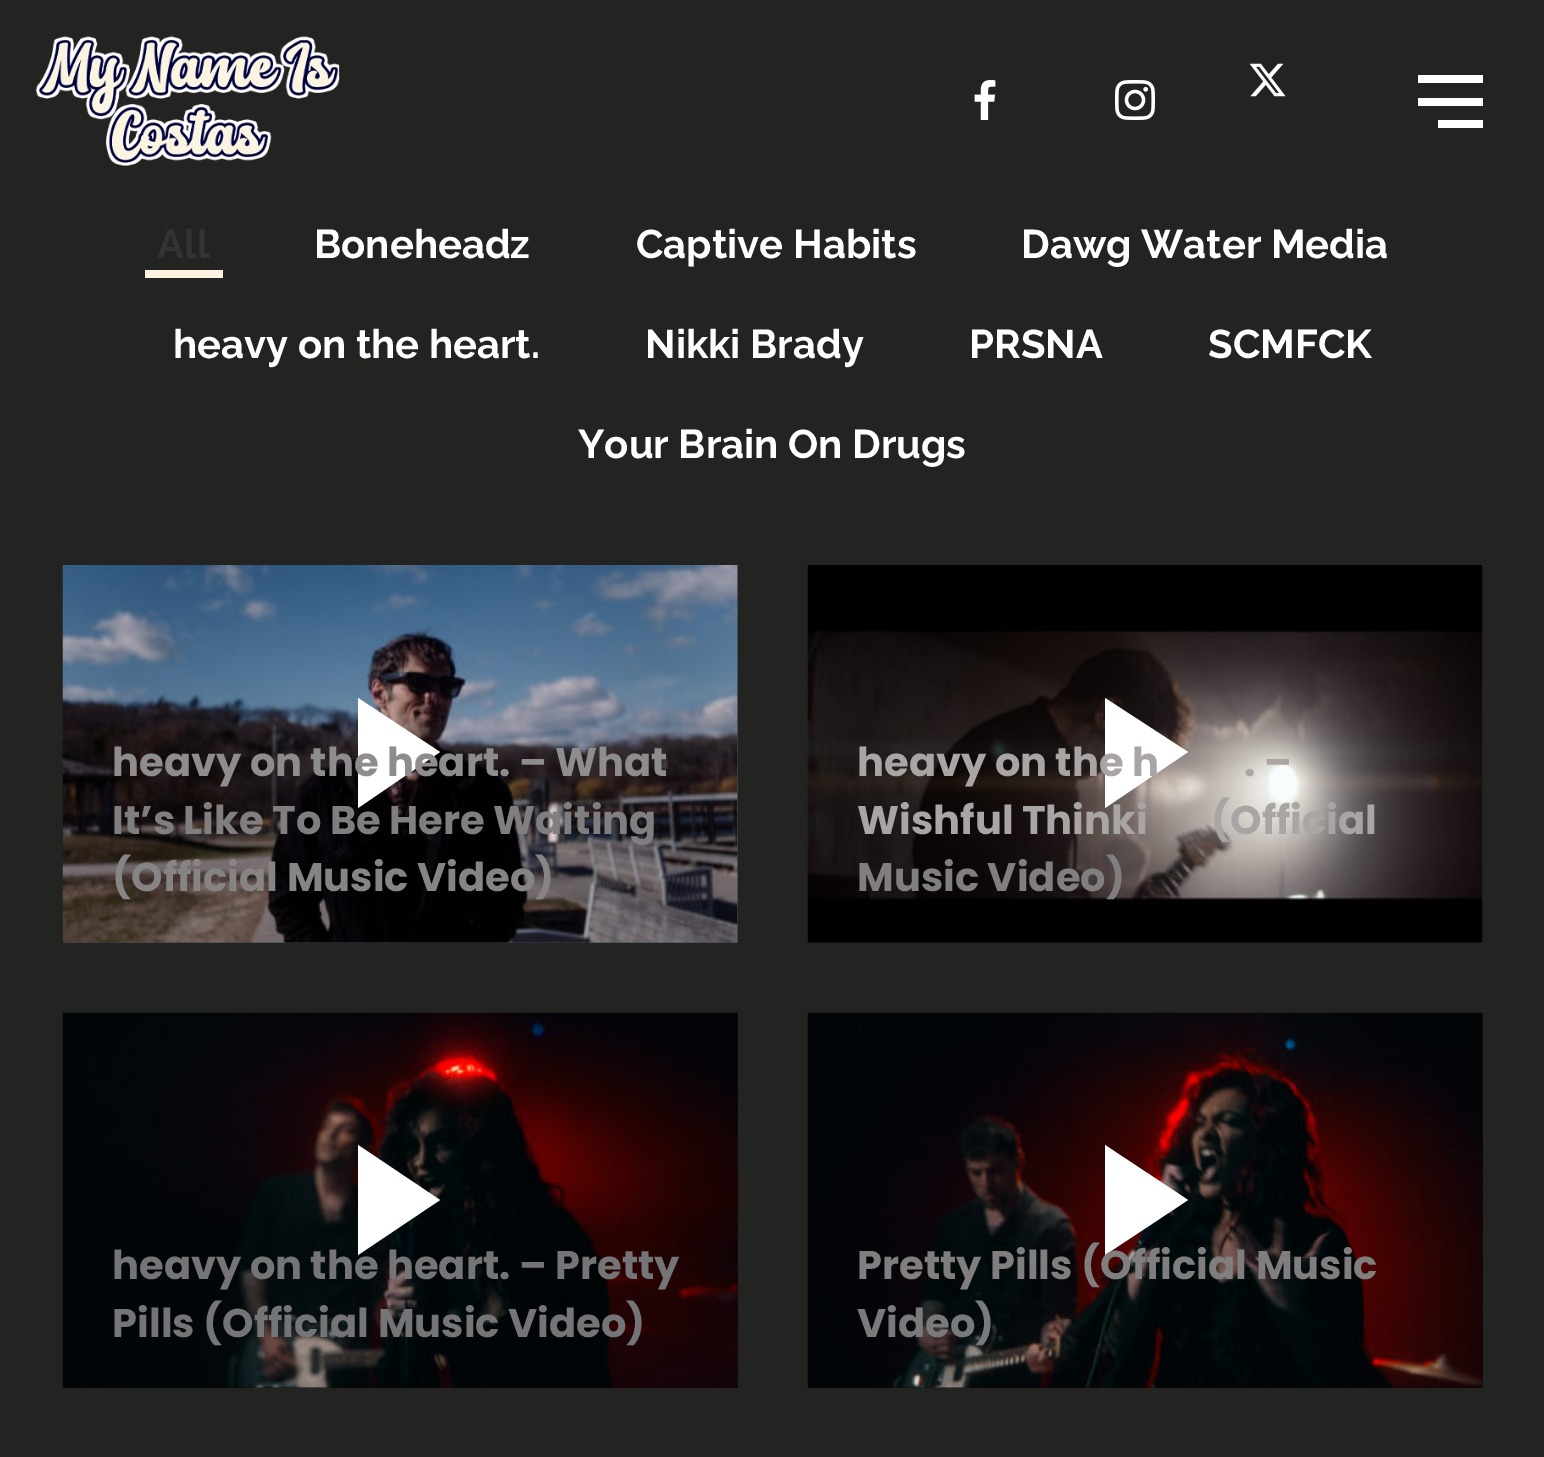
%!PS
<< /PageSize [1544 1457] >> setpagedevice
/mt/moveto load def
/li/lineto load def
/cp/closepath load def
/fl/fill load def
/co { dup -16 bitshift 255 div exch dup -8 bitshift 255 and 255 div exch 255 and 255 div setrgbcolor } def
/fn { [ exch dup neg 0 0 3 -1 roll 0 0 ] selectfont } def
/tx { co fn moveto show } def
/bx { co rectfill } def
/im { 5 dict begin { /h /w /y /x /name } { exch def } forall
  gsave x y translate w h scale
  w h 8 [w 0 0 h 0 0] name (r) file false 3 colorimage grestore end } def
0 1457 translate 1 -1 scale
4 setmiterlimit
0 0 1544 1457 16#232322 bx
(media/1.raw) 35 36 305 130 im
(media/2.raw) 974 80 22 40 im
(media/3.raw) 1115 80 40 40 im
(media/4.raw) 1249 63 37 34 im
1418 75 65 8 16#FFFFFF bx
1418 98 65 8 16#FFFFFF bx
1438 120 45 8 16#FFFFFF bx
145 270 78 8 16#FBF4E1 bx
63 565 675 378 16#3C434F bx
(media/5.raw) 62 565 676 378 im
16#FFFFFF co
358 808 mt 358 698 li 440 752 li cp fl
808 565 675 378 16#282322 bx
(media/6.raw) 807 565 676 378 im
16#FFFFFF co
1105 808 mt 1105 698 li 1188 752 li cp fl
63 1013 675 375 16#11080A bx
(media/7.raw) 62 1012 676 376 im
16#FFFFFF co
358 1255 mt 358 1145 li 440 1200 li cp fl
808 1013 675 375 16#14090B bx
(media/8.raw) 807 1012 676 376 im
16#FFFFFF co
1105 1255 mt 1105 1145 li 1188 1200 li cp fl
(All) 157 258 /Raleway-Bold 40 16#333333 tx
(Boneheadz) 314 258 /Raleway-Bold 40 16#FFFFFF tx
(Captive Habits) 636 258 /Raleway-Bold 40 16#FFFFFF tx
(Dawg Water Media) 1021 258 /Raleway-Bold 40 16#FFFFFF tx
(heavy on the heart.) 173 358 /Raleway-Bold 40 16#FFFFFF tx
(Nikki Brady) 645 358 /Raleway-Bold 40 16#FFFFFF tx
(PRSNA) 969 358 /Raleway-Bold 40 16#FFFFFF tx
(SCMFCK) 1208 358 /Raleway-Bold 40 16#FFFFFF tx
(Your Brain On Drugs) 578 458 /Raleway-Bold 40 16#FFFFFF tx
(heavy on the heart. – What) 112 776 /Poppins-Bold 40 16#8F8C8D tx
(It’s Like To Be Here Waiting) 112 834 /Poppins-Bold 40 16#807E7F tx
(\(Official Music Video\)) 112 891 /Poppins-Bold 40 16#878484 tx
(heavy on the h) 857 776 /Poppins-Bold 40 16#A9A5A4 tx
(. –) 1244 776 /Poppins-Bold 40 16#A9A5A4 tx
(Wishful Thinki) 857 834 /Poppins-Bold 40 16#A9A5A4 tx
(\(Official) 1211 834 /Poppins-Bold 40 16#A9A5A4 tx
(Music Video\)) 857 891 /Poppins-Bold 40 16#807E7F tx
(heavy on the heart. – Pretty) 112 1279 /Poppins-Bold 40 16#757476 tx
(Pills \(Official Music Video\)) 112 1337 /Poppins-Bold 40 16#757476 tx
(Pretty Pills \(Official Music) 857 1279 /Poppins-Bold 40 16#807E7F tx
(Video\)) 857 1337 /Poppins-Bold 40 16#797A7B tx
showpage
